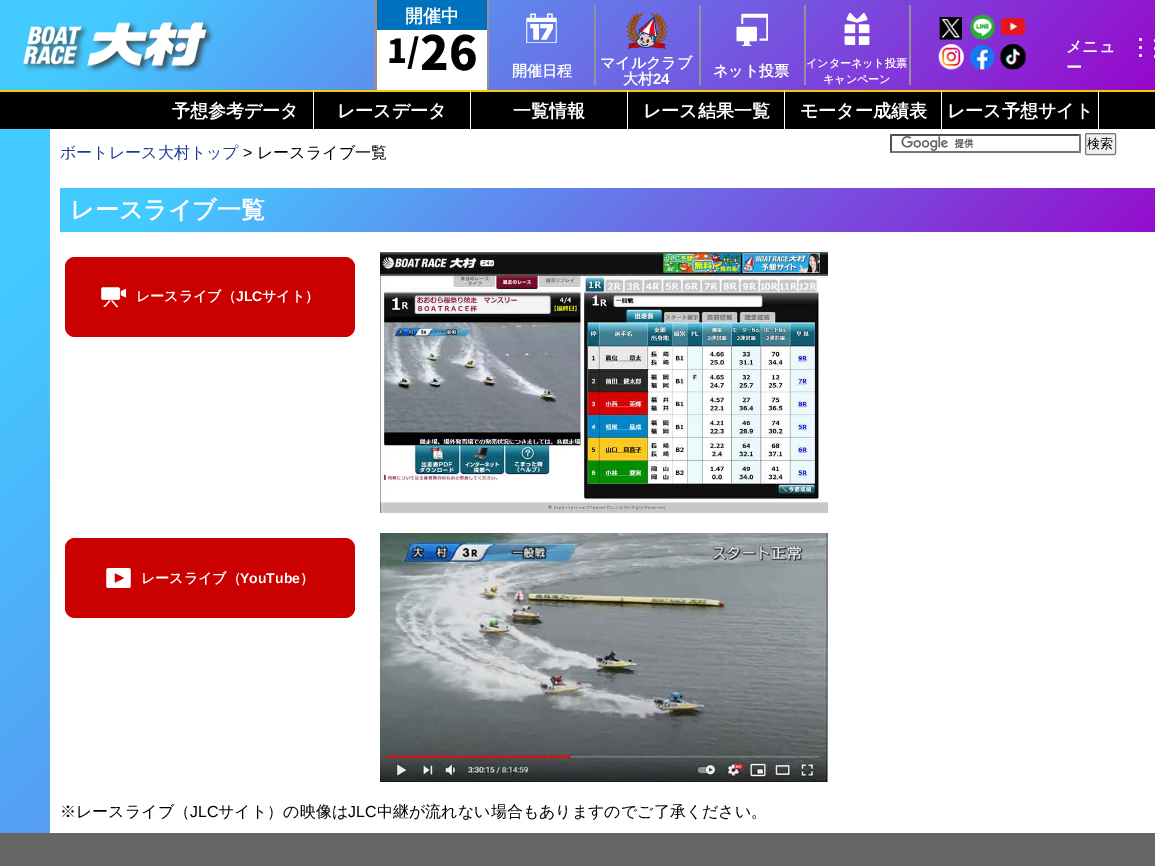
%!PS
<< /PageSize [1155 866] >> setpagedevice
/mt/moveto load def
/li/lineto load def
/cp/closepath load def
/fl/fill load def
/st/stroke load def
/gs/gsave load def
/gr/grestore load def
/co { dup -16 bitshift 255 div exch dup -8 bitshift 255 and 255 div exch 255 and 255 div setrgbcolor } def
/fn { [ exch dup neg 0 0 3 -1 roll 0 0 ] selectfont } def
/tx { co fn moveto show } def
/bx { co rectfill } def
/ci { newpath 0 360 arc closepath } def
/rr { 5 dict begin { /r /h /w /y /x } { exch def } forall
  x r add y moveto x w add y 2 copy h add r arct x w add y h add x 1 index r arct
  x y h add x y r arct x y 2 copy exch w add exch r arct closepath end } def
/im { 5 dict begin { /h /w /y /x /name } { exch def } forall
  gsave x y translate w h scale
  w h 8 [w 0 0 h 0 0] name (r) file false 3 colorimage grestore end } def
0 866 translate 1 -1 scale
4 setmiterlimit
0 0 1155 866 16#FFFFFF bx
gs 0 129 mt 50 129 li 50 833 li 0 833 li cp clip newpath
<< /ShadingType 2 /ColorSpace /DeviceRGB /Coords [-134 134 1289 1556] /Extend [true true] /Function << /FunctionType 3 /Domain [0 1] /Functions [<< /FunctionType 2 /Domain [0 1] /C0 [.263 .796 1] /C1 [.263 .796 1] /N 1 >> << /FunctionType 2 /Domain [0 1] /C0 [.263 .796 1] /C1 [.592 .031 .8] /N 1 >>] /Bounds [.1] /Encode [0 1 0 1] >> >> shfill gr
0 92 1155 37 16#000000 bx
gs 0 0 mt 1155 0 li 1155 90 li 0 90 li cp clip newpath
<< /ShadingType 2 /ColorSpace /DeviceRGB /Coords [266 -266 889 356] /Extend [true true] /Function << /FunctionType 3 /Domain [0 1] /Functions [<< /FunctionType 2 /Domain [0 1] /C0 [.263 .796 1] /C1 [.263 .796 1] /N 1 >> << /FunctionType 2 /Domain [0 1] /C0 [.263 .796 1] /C1 [.592 .031 .8] /N 1 >>] /Bounds [.1] /Encode [0 1 0 1] >> >> shfill gr
(media/1.raw) 23 21 191 52 im
487 0 2 89 16#939299 bx
374 0 3 89 16#939299 bx
377 0 110 30 16#0071BC bx
377 30 110 60 16#FFFFFF bx
(media/2.raw) 526 13 31 30 im
594 5 2 80 16#939299 bx
(media/3.raw) 626 13 41 36 im
699 5 2 80 16#939299 bx
(media/4.raw) 736 13 32 33 im
804 5 2 80 16#939299 bx
(media/5.raw) 844 13 26 32 im
909 5 2 80 16#939299 bx
(media/6.raw) 938 14 88 56 im
16#FFFFFF co
1140.5 39.5 1.5 ci fl
1140.5 47.5 1.5 ci fl
1140.5 55.5 1.5 ci fl
1155.5 40.5 1.5 ci fl
1155.5 48.5 1.5 ci fl
1155.5 56.5 1.5 ci fl
0 90 1155 2 16#F5CB00 bx
16#FFFFFF co
314 90 mt 314 129 li 313 129 li 313 92 li cp fl
471 90 mt 471 129 li 470 129 li 470 92 li cp fl
628 90 mt 628 129 li 627 129 li 627 92 li cp fl
785 90 mt 785 129 li 784 129 li 784 92 li cp fl
942 90 mt 942 129 li 941 129 li 941 92 li cp fl
1099 90 mt 1099 129 li 1098 129 li 1098 92 li cp fl
gs 60 188 mt 1155 188 li 1155 232 li 60 232 li cp clip newpath
<< /ShadingType 2 /ColorSpace /DeviceRGB /Coords [329 -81 911 501] /Extend [true true] /Function << /FunctionType 3 /Domain [0 1] /Functions [<< /FunctionType 2 /Domain [0 1] /C0 [.263 .796 1] /C1 [.263 .796 1] /N 1 >> << /FunctionType 2 /Domain [0 1] /C0 [.263 .796 1] /C1 [.592 .031 .8] /N 1 >>] /Bounds [.1] /Encode [0 1 0 1] >> >> shfill gr
16#CB0000 co
65 257 290 80 10 rr fl
(media/7.raw) 101 287 25 20 im
(media/8.raw) 380 252 448 261 im
65 538 290 80 10 rr fl
(media/9.raw) 106 568 25 20 im
(media/10.raw) 380 533 448 249 im
0 833 1155 33 16#666666 bx
(media/11.raw) 901 136 73 15 im
16#4F4F4F co
890 134 mt 1081 134 li 1079 136 li 892 136 li cp fl
16#767676 co
1081 134 mt 1081 153 li 1079 151 li 1079 136 li cp fl
1081 153 mt 890 153 li 892 151 li 1079 151 li cp fl
16#4F4F4F co
890 153 mt 890 134 li 892 136 li 892 151 li cp fl
16#EFEFEF co
1085.5 133.5 30 21 1.5 rr gs fl gr
16#767676 co
st
(開催中) 405 22 /WenQuanYiZenHei-Bold 18 16#FFFFFF tx
(1/) 387 63 /NotoSansJP-Thin 33 16#000000 tx
(26) 420 70 /NotoSansJP-Thin 47 16#000000 tx
(開催日程) 512 76 /WenQuanYiZenHei-Bold 15 16#FFFFFF tx
(マイルクラブ) 600 68 /WenQuanYiZenHei-Bold 15 16#FFFFFF tx
(大村) 623 84 /WenQuanYiZenHei-Bold 15 16#FFFFFF tx
(24) 653 84 /LiberationSans-Bold 15 16#FFFFFF tx
(ネット投票) 713 76 /WenQuanYiZenHei-Bold 15 16#FFFFFF tx
(インターネット投票) 806 67 /WenQuanYiZenHei-Bold 11 16#FFFFFF tx
(キャンペーン) 823 83 /WenQuanYiZenHei-Bold 11 16#FFFFFF tx
(メニュ) 1066 52 /WenQuanYiZenHei-Bold 16 16#FFFFFF tx
(ー) 1066 73 /WenQuanYiZenHei-Bold 16 16#FFFFFF tx
(予想参考データ) 172 117 /WenQuanYiZenHei-Bold 18 16#FFFFFF tx
(レースデータ) 337 117 /WenQuanYiZenHei-Bold 18 16#FFFFFF tx
(一覧情報) 513 117 /WenQuanYiZenHei-Bold 18 16#FFFFFF tx
(レース結果一覧) 643 117 /WenQuanYiZenHei-Bold 18 16#FFFFFF tx
(モーター成績表) 800 117 /WenQuanYiZenHei-Bold 18 16#FFFFFF tx
(レース予想サイト) 947 117 /WenQuanYiZenHei-Bold 18 16#FFFFFF tx
(ボートレース大村トップ) 60 158 /WenQuanYiZenHei-Medium 16 16#1D3994 tx
(>) 243 158 /LiberationSans-Regular 16 16#000000 tx
(レースライブ一覧) 257 158 /WenQuanYiZenHei-Medium 16 16#000000 tx
(レースライブ一覧) 70 218 /WenQuanYiZenHei-Bold 24 16#FFFFFF tx
(レースライブ（) 136 301 /WenQuanYiZenHei-Bold 14 16#FFFFFF tx
(JLC) 236 301 /LiberationSans-Bold 14 16#FFFFFF tx
(サイト）) 262 301 /WenQuanYiZenHei-Bold 14 16#FFFFFF tx
(レースライブ（) 141 583 /WenQuanYiZenHei-Bold 14 16#FFFFFF tx
(YouTube) 240 583 /LiberationSans-Bold 14 16#FFFFFF tx
(）) 300 583 /WenQuanYiZenHei-Bold 14 16#FFFFFF tx
(※レースライブ（) 60 817 /WenQuanYiZenHei-Medium 16 16#000000 tx
(JLC) 190 817 /LiberationSans-Regular 16 16#000000 tx
(サイト）の映像は) 218 817 /WenQuanYiZenHei-Medium 16 16#000000 tx
(JLC) 348 817 /LiberationSans-Regular 16 16#000000 tx
(中継が流れない場合もありますのでご了承ください。) 377 817 /WenQuanYiZenHei-Medium 16 16#000000 tx
(検索) 1087 148 /WenQuanYiZenHei-Medium 13 16#000000 tx
showpage
